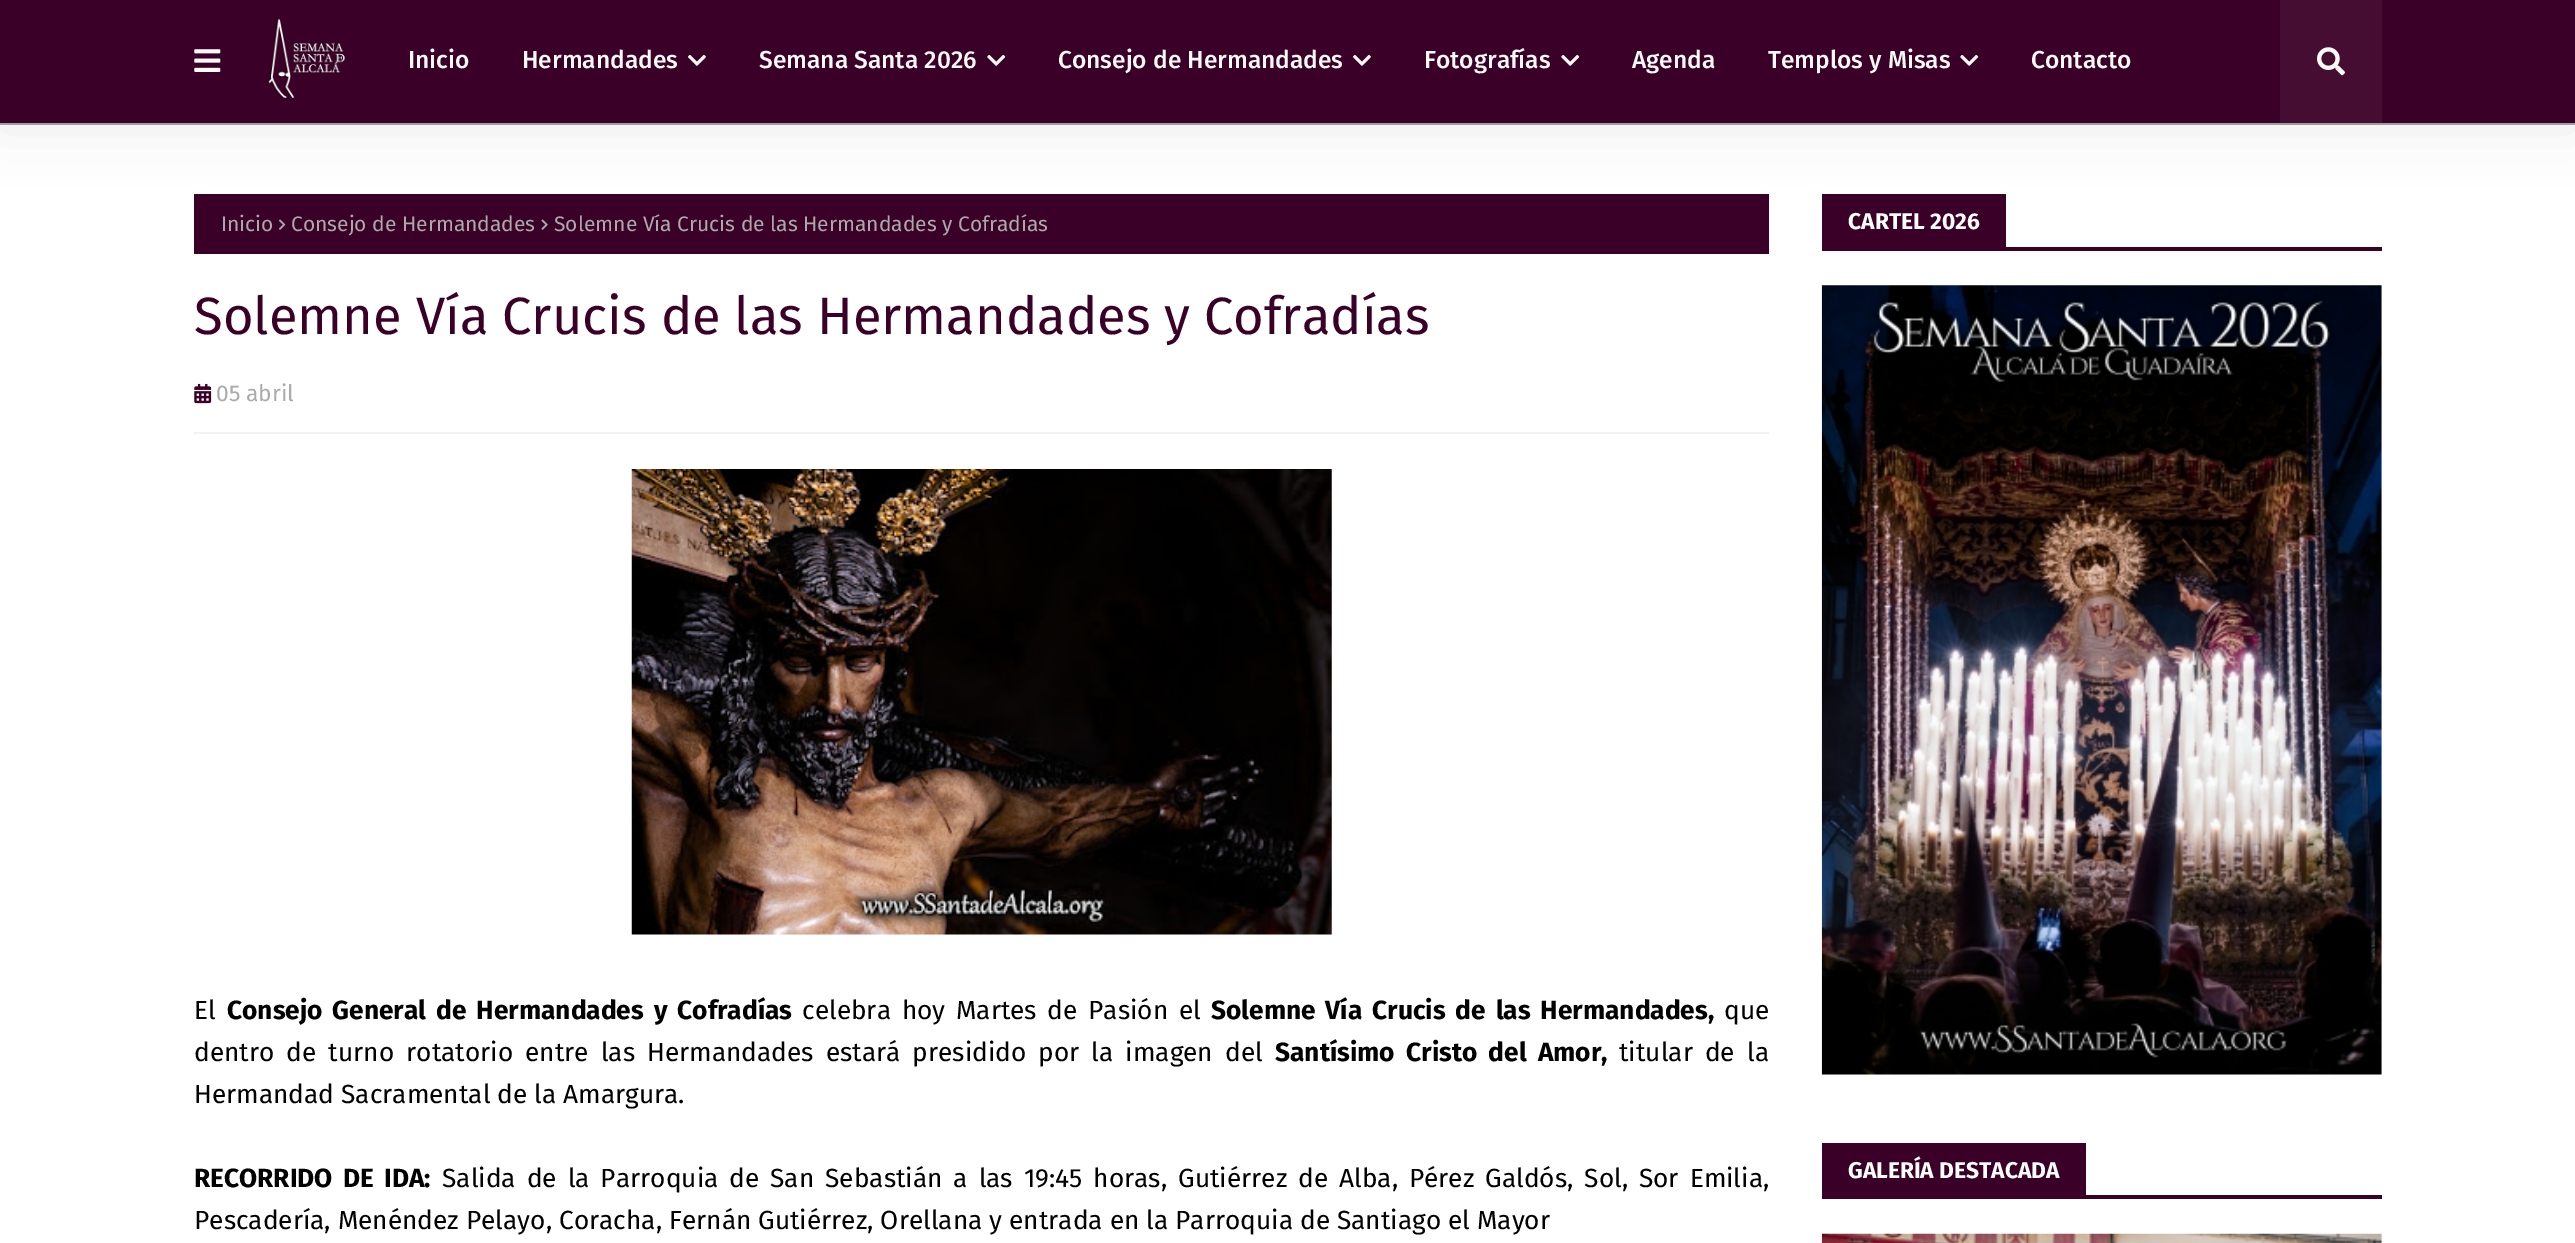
%!PS
<< /PageSize [2575 1243] /PageUsesTransparency true >> setpagedevice
/mt/moveto load def
/co { dup -16 bitshift 255 div exch dup -8 bitshift 255 and 255 div exch 255 and 255 div setrgbcolor } def
/fn { [ exch dup neg 0 0 3 -1 roll 0 0 ] selectfont } def
/tx { co fn moveto show } def
/bx { co rectfill } def
/al { dup .setfillconstantalpha .setstrokeconstantalpha } def
/rr { 5 dict begin { /r /h /w /y /x } { exch def } forall
  x r add y moveto x w add y 2 copy h add r arct x w add y h add x 1 index r arct
  x y h add x y r arct x y 2 copy exch w add exch r arct closepath end } def
/sh { 12 dict begin { /a /b /q /h /w /y /x } { exch def } forall gsave /was 0 def
  9 -2 -9 { dup b mul 4 div /e exch def 1 sub .425 mul 2.718 exch exp 1 add a .99 .min exch div /now exch def
    1 1 now sub 1 was sub div sub al /was now def
    w h .min e 2 mul add 0 gt { x e sub y e sub w e 2 mul add h e 2 mul add
      q e add b .6 mul add w h .min 2 div e add .min 0 .max rr fill } if } for grestore end } def
/im { 5 dict begin { /h /w /y /x /name } { exch def } forall
  gsave x y translate w h scale
  w h 8 [w 0 0 h 0 0] name (r) file false 3 colorimage grestore end } def
0 .pushpdf14devicefilter
0 1243 translate 1 -1 scale
4 setmiterlimit
0 0 2575 1243 16#FFFFFF bx
0 123 2575 2 16#A6A6A6 bx
194 194 1575 60 16#3B0027 bx
1822 194 184 53 16#3B0027 bx
16#000000 co
0 7 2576 123 0 26 .07 sh
0 0 2575 123 16#3B0027 bx
(media/1.raw) 194 49 27 23 im
(media/2.raw) 267 18 78 81 im
(media/3.raw) 688 55 18 11 im
(media/4.raw) 987 55 19 11 im
(media/3.raw) 1353 55 18 11 im
(media/4.raw) 1561 55 19 11 im
(media/4.raw) 1960 55 19 11 im
2280 0 102 123 16#450D32 bx
(media/5.raw) 2317 47 28 29 im
(media/6.raw) 279 219 7 11 im
(media/7.raw) 541 219 7 11 im
(media/8.raw) 194 383 18 21 im
194 432 1575 2 16#F2F2F6 bx
(media/9.raw) 631 469 701 466 im
1822 247 560 4 16#3B0027 bx
(media/10.raw) 1821 285 561 790 im
2086 1195 296 4 16#3B0027 bx
1822 1143 264 56 16#3B0027 bx
(media/11.raw) 1821 1233 561 10 im
(Inicio) 408 68 /FiraSans-Medium 24.5 16#F9F9F5 tx
(Hermandades) 522 68 /FiraSans-Medium 24.5 16#F9F9F5 tx
(Semana Santa 2026) 759 68 /FiraSans-Medium 24.5 16#F9F9F5 tx
(Consejo de Hermandades) 1058 68 /FiraSans-Medium 24.5 16#F9F9F5 tx
(Fotografías) 1424 68 /FiraSans-Medium 24.5 16#F9F9F5 tx
(Agenda) 1632 68 /FiraSans-Medium 24.5 16#F9F9F5 tx
(Templos y Misas) 1768 68 /FiraSans-Medium 24.5 16#F9F9F5 tx
(Contacto) 2031 68 /FiraSans-Medium 24.5 16#F9F9F5 tx
(Inicio) 221 231 /FiraSans-Regular 21 16#AAAAAA tx
(Consejo de Hermandades) 291 231 /FiraSans-Regular 21 16#AAAAAA tx
(Solemne Vía Crucis de las Hermandades y Cofradías) 554 231 /FiraSans-Regular 21 16#AAAAAA tx
(Solemne Vía Crucis de las Hermandades y Cofradías) 194 334 /FiraSans-Regular 52.5 16#3B0027 tx
(05 abril) 216 401 /FiraSans-Regular 22.75 16#AAAAAA tx
(El) 194 1019 /FiraSans-Regular 26.25 16#000000 tx
/FiraSans-Bold 26.25 fn
227 1019 mt 3.75 0 32 (Consejo General de Hermandades y Cofradías) widthshow
/FiraSans-Regular 26.25 fn
802 1019 mt 3.75 0 32 (celebra hoy Martes de Pasión el) widthshow
/FiraSans-Bold 26.25 fn
1211 1019 mt 3.75 0 32 (Solemne Vía Crucis de las Hermandades,) widthshow
(que) 1724 1019 /FiraSans-Regular 26.25 16#000000 tx
194 1061 mt 5.1 0 32 (dentro de turno rotatorio entre las Hermandades estará presidido por la imagen del) widthshow
/FiraSans-Bold 26.25 fn
1275 1061 mt 5.1 0 32 (Santísimo Cristo del Amor,) widthshow
/FiraSans-Regular 26.25 fn
1619 1061 mt 5.1 0 32 (titular de la) widthshow
(Hermandad Sacramental de la Amargura.) 194 1103 /FiraSans-Regular 26.25 16#000000 tx
/FiraSans-Bold 26.25 fn
194 1187 mt 4 0 32 (RECORRIDO DE IDA:) widthshow
/FiraSans-Regular 26.25 fn
442 1187 mt 4 0 32 (Salida de la Parroquia de San Sebastián a las 19:45 horas,) widthshow
1178 1187 mt 4 0 32 (Gutiérrez de Alba, Pérez Galdós, Sol, Sor Emilia,) widthshow
(Pescadería, Menéndez Pelayo, Coracha, Fernán Gutiérrez, Orellana y entrada en la Parroquia de Santiago el Mayor) 194 1229 /FiraSans-Regular 26.25 16#000000 tx
(CARTEL 2026) 1848 229 /FiraSans-Bold 22.75 16#FFFFFF tx
(GALERÍA DESTACADA) 1848 1178 /FiraSans-Bold 22.75 16#FFFFFF tx
.poppdf14devicefilter showpage
